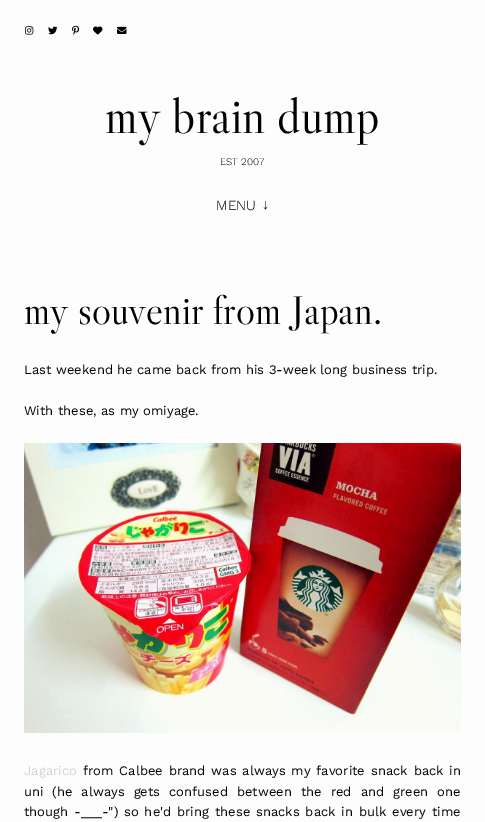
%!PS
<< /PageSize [485 822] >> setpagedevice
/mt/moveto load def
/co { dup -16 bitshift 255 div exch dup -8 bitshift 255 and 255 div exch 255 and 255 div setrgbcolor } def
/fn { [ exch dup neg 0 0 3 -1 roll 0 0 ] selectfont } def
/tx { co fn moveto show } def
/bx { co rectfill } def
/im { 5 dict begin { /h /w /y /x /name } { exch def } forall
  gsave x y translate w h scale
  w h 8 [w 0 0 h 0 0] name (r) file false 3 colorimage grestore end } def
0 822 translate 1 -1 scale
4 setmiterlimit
0 0 485 822 16#FDFDFD bx
(media/1.raw) 25 26 9 9 im
(media/2.raw) 48 26 10 9 im
(media/3.raw) 72 25 8 10 im
(media/4.raw) 93 26 10 9 im
(media/5.raw) 117 26 10 8 im
(media/6.raw) 24 443 437 290 im
(my brain dump) 105 133 /LibreCaslonDisplay-Regular 50 16#000000 tx
(EST 2007) 220 165 /WorkSans-Light 10 16#000000 tx
(MENU) 216 210 /WorkSans-Light 14 16#000000 tx
(↓) 262 209 /LiberationSerif-Regular 14 16#000000 tx
(my souvenir from Japan.) 24 324 /LibreCaslonDisplay-Regular 40 16#000000 tx
(Last weekend he came back from his 3-week long business trip.) 24 374 /WorkSans-Regular 13 16#000000 tx
(With these, as my omiyage.) 24 415 /WorkSans-Regular 13 16#000000 tx
(Jagarico) 24 775 /WorkSans-Regular 13 16#D3D2D1 tx
16#000000 co
83 775 mt 1.4 0 32 (from Calbee brand was always my favorite snack back in) widthshow
24 796 mt 4.5 0 32 (uni \(he always gets confused between the red and green one) widthshow
24 816 mt 1.4 0 32 (though -___-"\) so he'd bring these snacks back in bulk every time) widthshow
showpage
